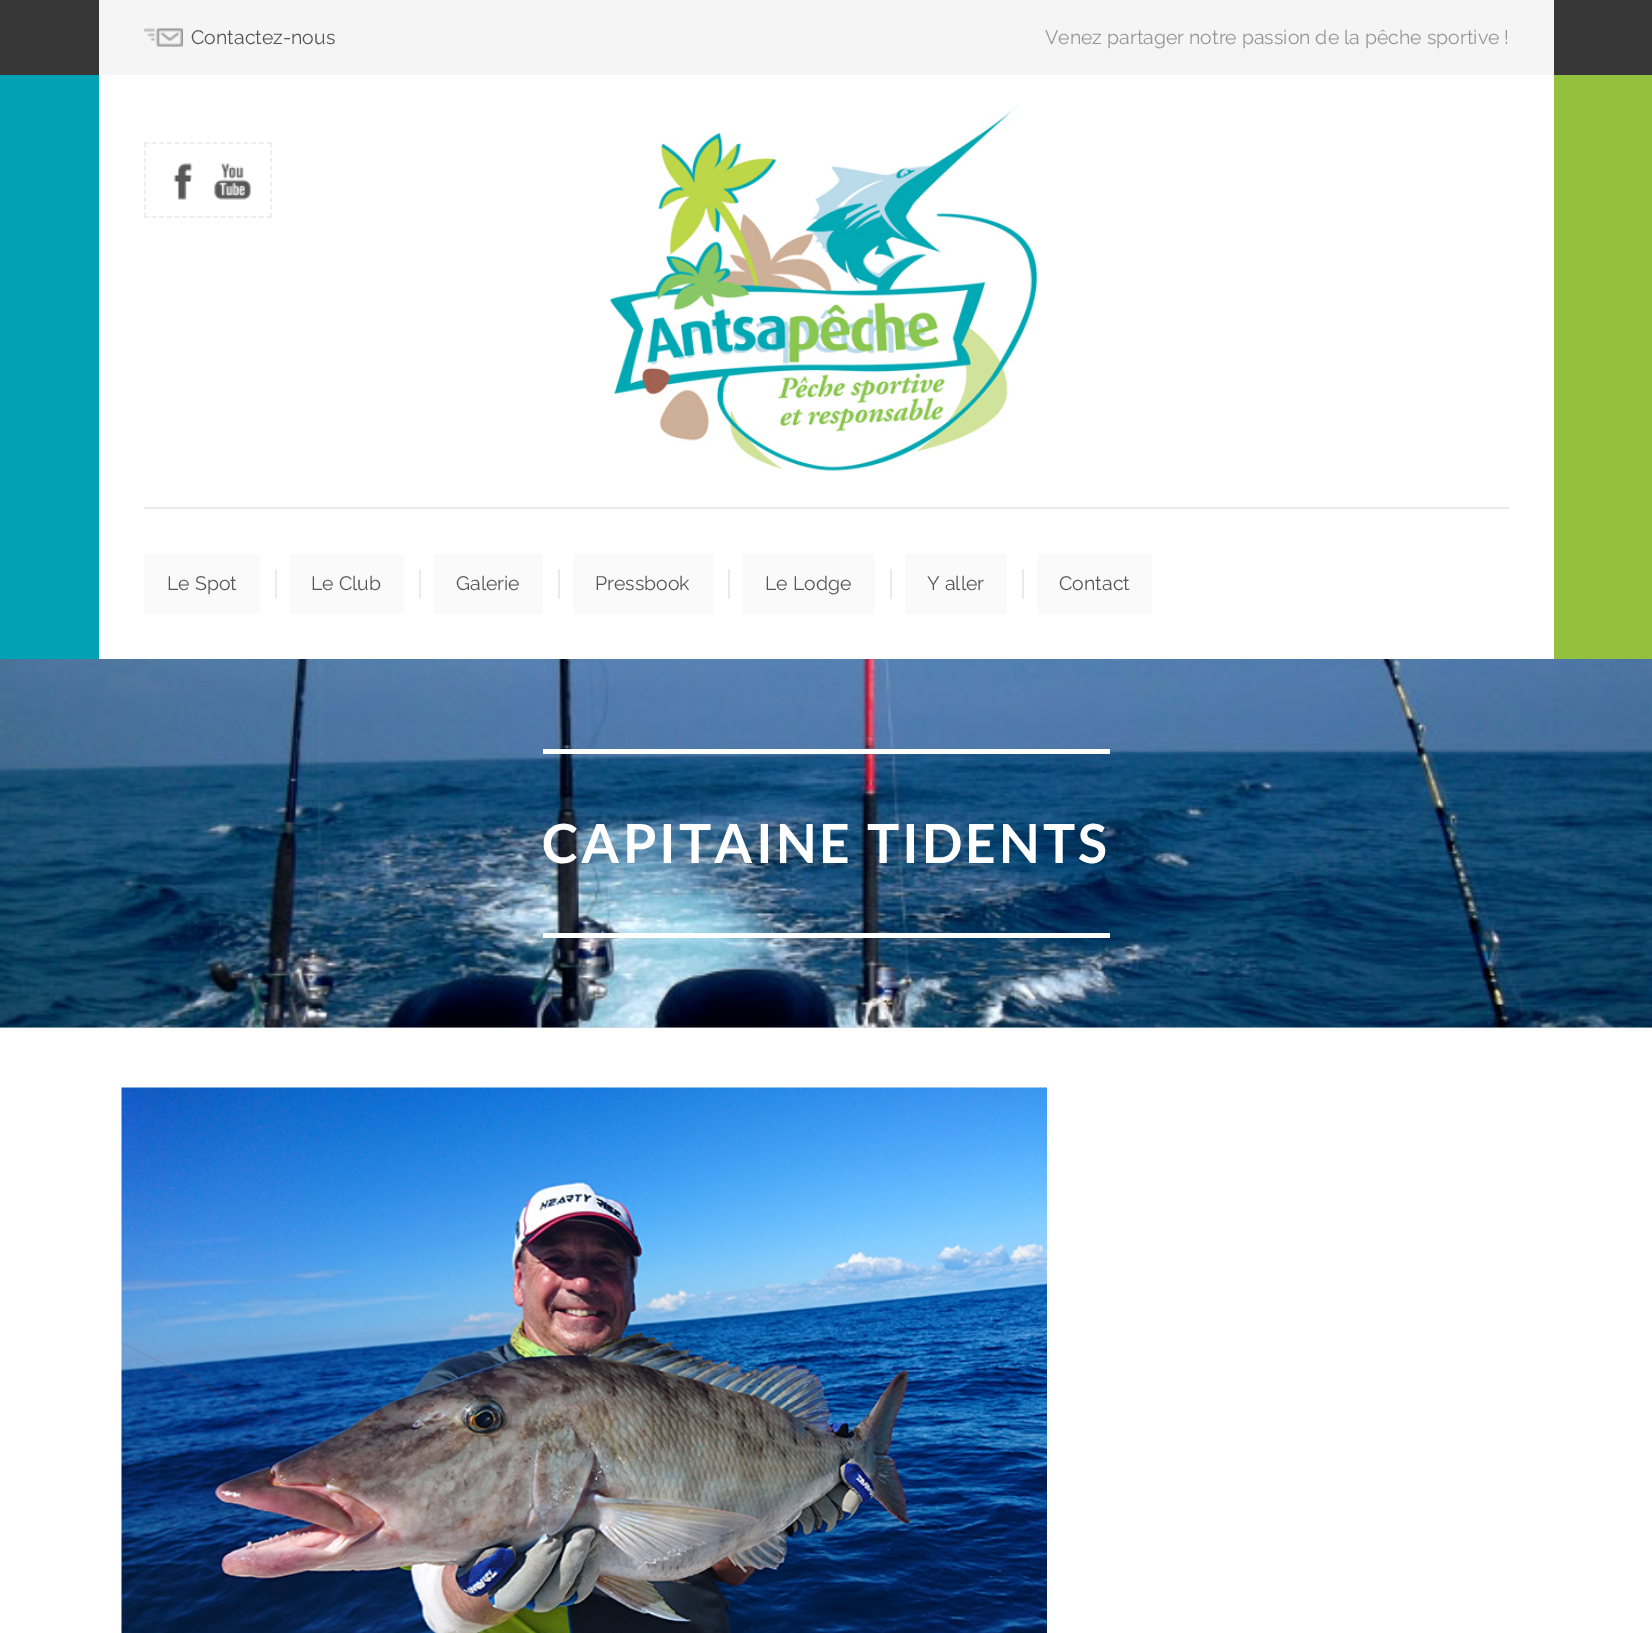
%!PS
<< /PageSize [1652 1633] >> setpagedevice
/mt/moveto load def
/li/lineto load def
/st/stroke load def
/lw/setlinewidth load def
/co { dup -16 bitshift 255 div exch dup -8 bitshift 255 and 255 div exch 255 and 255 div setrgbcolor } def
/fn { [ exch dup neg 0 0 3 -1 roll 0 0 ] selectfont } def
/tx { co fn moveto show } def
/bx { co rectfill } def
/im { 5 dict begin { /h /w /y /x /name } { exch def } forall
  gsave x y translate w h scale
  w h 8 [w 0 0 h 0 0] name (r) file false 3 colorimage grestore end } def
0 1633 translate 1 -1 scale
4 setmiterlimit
0 0 1652 1633 16#FFFFFF bx
0 0 1652 75 16#363636 bx
99 0 1455 75 16#F5F5F5 bx
(media/1.raw) 144 28 39 19 im
0 75 99 584 16#00A2B3 bx
1554 75 98 584 16#94C13D bx
16#EBEBEB co
1.5 lw
[4.5 3.18] 0 setdash
144 143 mt 271.5 143 li st
[4.5 3.33] 0 setdash
271 142.5 mt 271 217.5 li st
[4.5 3.18] 0 setdash
144 217 mt 271.5 217 li st
[4.5 3.33] 0 setdash
145 142.5 mt 145 217.5 li st
(media/2.raw) 173 163 20 37 im
(media/3.raw) 214 163 37 37 im
(media/4.raw) 609 105 429 366 im
144 507 1365 2 16#EBEBEB bx
144 554 116 60 16#FAFAFA bx
275 569 2 30 16#EBEBEB bx
290 554 114 60 16#FAFAFA bx
419 569 2 30 16#EBEBEB bx
434 554 109 60 16#FAFAFA bx
558 569 2 30 16#EBEBEB bx
573 554 140 60 16#FAFAFA bx
728 569 2 30 16#EBEBEB bx
743 554 132 60 16#FAFAFA bx
890 569 2 30 16#EBEBEB bx
905 554 102 60 16#FAFAFA bx
1022 569 2 30 16#EBEBEB bx
1037 554 115 60 16#FAFAFA bx
0 1027 1652 1 16#E1E1E1 bx
(media/5.raw) 0 659 1652 369 im
543 749 567 5 16#FFFFFF bx
543 933 567 5 16#FFFFFF bx
(media/6.raw) 121 1087 926 546 im
(Contactez-nous) 191 44 /Raleway-Regular 19.5 16#555555 tx
(Venez partager notre passion de la pêche sportive !) 1045 44 /Raleway-Regular 19.5 16#959595 tx
(Le Spot) 167 590 /Raleway-Regular 19.5 16#555555 tx
(Le Club) 311 590 /Raleway-Regular 19.5 16#555555 tx
(Galerie) 456 590 /Raleway-Regular 19.5 16#555555 tx
(Pressbook) 595 590 /Raleway-Regular 19.5 16#555555 tx
(Le Lodge) 765 590 /Raleway-Regular 19.5 16#555555 tx
(Y aller) 927 590 /Raleway-Regular 19.5 16#555555 tx
(Contact) 1059 590 /Raleway-Regular 19.5 16#555555 tx
/Lato-Bold 54 fn
16#FFFFFF co
542 863 mt 3 0 (CAPITAINE TIDENTS) ashow
showpage
